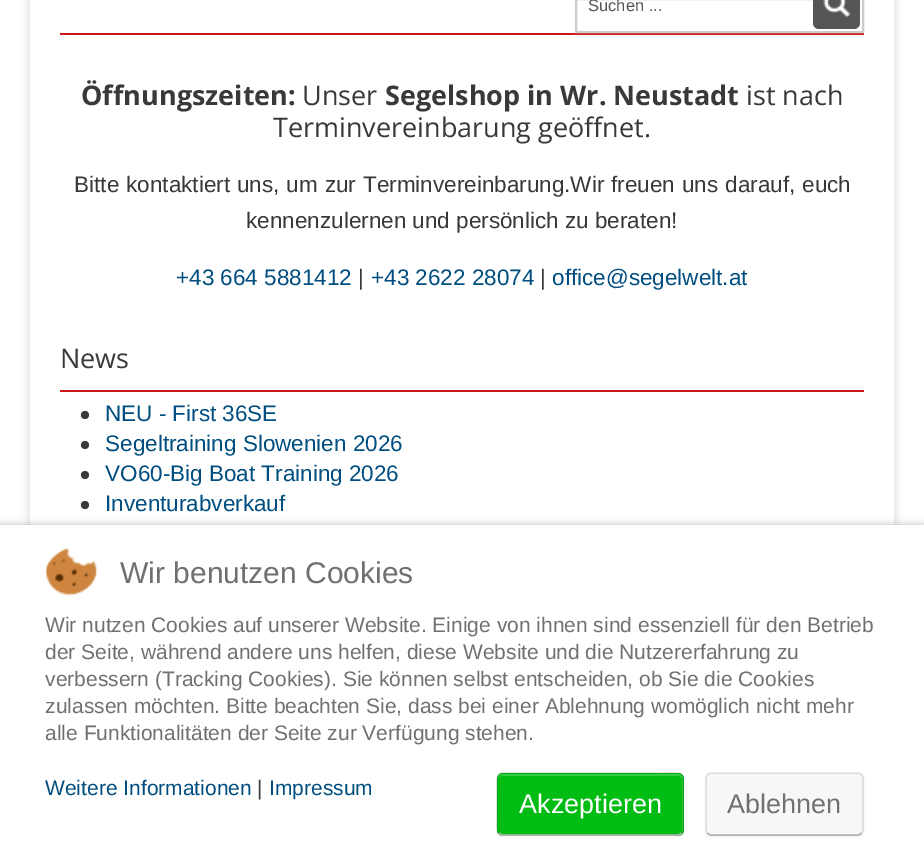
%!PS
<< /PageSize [924 857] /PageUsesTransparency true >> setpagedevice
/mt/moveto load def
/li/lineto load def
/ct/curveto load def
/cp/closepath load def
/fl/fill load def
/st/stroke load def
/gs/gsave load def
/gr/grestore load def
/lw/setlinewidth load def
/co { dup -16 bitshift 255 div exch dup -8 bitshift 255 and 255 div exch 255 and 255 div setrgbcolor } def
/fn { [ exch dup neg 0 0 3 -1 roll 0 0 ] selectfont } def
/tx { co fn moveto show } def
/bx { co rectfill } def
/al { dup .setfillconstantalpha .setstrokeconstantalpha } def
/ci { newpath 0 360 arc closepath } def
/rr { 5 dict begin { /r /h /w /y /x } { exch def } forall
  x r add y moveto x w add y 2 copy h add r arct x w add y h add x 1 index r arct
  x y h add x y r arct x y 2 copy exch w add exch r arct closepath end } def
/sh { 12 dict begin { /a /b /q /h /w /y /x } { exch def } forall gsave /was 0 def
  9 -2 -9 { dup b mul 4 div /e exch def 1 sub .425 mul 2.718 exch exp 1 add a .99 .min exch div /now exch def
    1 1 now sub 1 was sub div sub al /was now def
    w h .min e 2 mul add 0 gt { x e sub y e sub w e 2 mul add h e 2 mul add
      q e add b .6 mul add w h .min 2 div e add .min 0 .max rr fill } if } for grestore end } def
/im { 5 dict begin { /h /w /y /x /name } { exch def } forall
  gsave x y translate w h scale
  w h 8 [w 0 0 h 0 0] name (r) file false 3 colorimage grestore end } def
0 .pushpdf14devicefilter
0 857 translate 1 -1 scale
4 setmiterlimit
0 0 924 857 16#FFFFFF bx
gs
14 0 mt 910 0 li 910 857 li 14 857 li cp 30 -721 mt 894 -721 li 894 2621 li 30 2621 li cp eoclip newpath
16#000000 co
30 -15 864 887 0 5 .17 sh
gr
60 33 804 2 16#CD1719 bx
16#CCCCCC co
2 lw
576 -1 287 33 rectstroke
16#555555 co
813 -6 47 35 6 rr fl
(media/1.raw) 823 0 28 18 im
60 390 804 2 16#CD1719 bx
16#393939 co
85 415 4 ci fl
85 445 4 ci fl
85 475 4 ci fl
85 505 4 ci fl
16#000000 co
0 525 924 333 0 4 .25 sh
0 525 924 332 16#FFFFFF bx
(media/2.raw) 45 547 53 49 im
16#000000 co
497 774 187 63 6 1.5 .05 sh
16#00BC13 co
497 773 187 63 6 rr fl
16#33C942 co
502 776 mt 678 776 li 680 776 682 778 682 780 ct 682 832 li 683 831 683 830 683 829 ct 683 779 li 683 776 681 774 678 774 ct 503 774 li 500 774 498 776 498 779 ct 498 780 li 498 778 500 776 502 776 ct cp fl
16#B3B3B3 co
1.5 lw
681.5 833 mt 680.5 834 679.5 835 678 835 ct 502.5 835 li 501 835 500 834 499 833 ct st
0.1 al
16#000000 co
499 833 mt 496 830.5 497 823.5 497 821 ct 497 787 li 497 783 495.5 773.5 502.5 773 ct 649 773 li 689.5 773 683 766 683 804 ct 683 821 li 683 823.5 684.5 830.5 681.5 833 ct st
1 al
705 774 159 63 6 1.5 .05 sh
16#F7F7F7 co
705 773 159 63 6 rr fl
16#B3B3B3 co
861.5 833 mt 860.5 834 859.5 835 858 835 ct 711 835 li 709.5 835 708.5 834 707.5 833 ct st
0.1 al
16#000000 co
707.5 833 mt 706.5 832 706 831 706 829.5 ct 706 778.5 li 706 777 706.5 776 707.5 775 ct 708.5 774 709.5 773 711 773 ct 858 773 li 859.5 773 860.5 774 861.5 775 ct 862.5 776 863 777 863 778.5 ct 863 829.5 li 863 831 862.5 832 861.5 833 ct st
1 al
(Suchen ...) 588 11 /LiberationSans-Regular 16.5 16#555555 tx
(Öffnungszeiten:) 81 105 /OpenSans-Bold 27 16#393939 tx
(Unser) 302 105 /OpenSans-Regular 27 16#393939 tx
(Segelshop in Wr. Neustadt) 385 105 /OpenSans-Bold 27 16#393939 tx
(ist nach) 746 105 /OpenSans-Regular 27 16#393939 tx
(Terminvereinbarung geöffnet.) 273 137 /OpenSans-Regular 27 16#393939 tx
/LiberationSans-Regular 22.5 fn
74 192 mt .75 0 32 (Bitte kontaktiert uns, um zur Terminvereinbarung.Wir freuen uns darauf, euch) widthshow
(kennenzulernen und persönlich zu beraten!) 246 228 /LiberationSans-Regular 22.5 16#393939 tx
(+43 664 5881412) 176 285 /LiberationSans-Regular 22.5 16#004D80 tx
(|) 358 285 /LiberationSans-Regular 22.5 16#393939 tx
(+43 2622 28074) 371 285 /LiberationSans-Regular 22.5 16#004D80 tx
(|) 540 285 /LiberationSans-Regular 22.5 16#393939 tx
(office@segelwelt.at) 552 285 /LiberationSans-Regular 22.5 16#004D80 tx
(News) 60 368 /OpenSans-Regular 27 16#393939 tx
(NEU - First 36SE) 105 421 /LiberationSans-Regular 22.5 16#004D80 tx
(Segeltraining Slowenien 2026) 105 451 /LiberationSans-Regular 22.5 16#004D80 tx
(VO60-Big Boat Training 2026) 105 481 /LiberationSans-Regular 22.5 16#004D80 tx
(Inventurabverkauf) 105 511 /LiberationSans-Regular 22.5 16#004D80 tx
(Wir benutzen Cookies) 120 583 /LiberationSans-Regular 30 16#707070 tx
(Wir nutzen Cookies auf unserer Website. Einige von ihnen sind essenziell für den Betrieb) 45 632 /LiberationSans-Regular 21 16#707070 tx
(der Seite, während andere uns helfen, diese Website und die Nutzererfahrung zu) 45 659 /LiberationSans-Regular 21 16#707070 tx
(verbessern \(Tracking Cookies\). Sie können selbst entscheiden, ob Sie die Cookies) 45 686 /LiberationSans-Regular 21 16#707070 tx
(zulassen möchten. Bitte beachten Sie, dass bei einer Ablehnung womöglich nicht mehr) 45 713 /LiberationSans-Regular 21 16#707070 tx
(alle Funktionalitäten der Seite zur Verfügung stehen.) 45 740 /LiberationSans-Regular 21 16#707070 tx
(Weitere Informationen) 45 795 /LiberationSans-Regular 21 16#004D80 tx
(|) 257 795 /LiberationSans-Regular 21 16#414141 tx
(Impressum) 269 795 /LiberationSans-Regular 21 16#004D80 tx
(Akzeptieren) 519 813 /LiberationSans-Regular 27 16#FFFFFF tx
(Ablehnen) 727 813 /LiberationSans-Regular 27 16#707070 tx
.poppdf14devicefilter showpage
